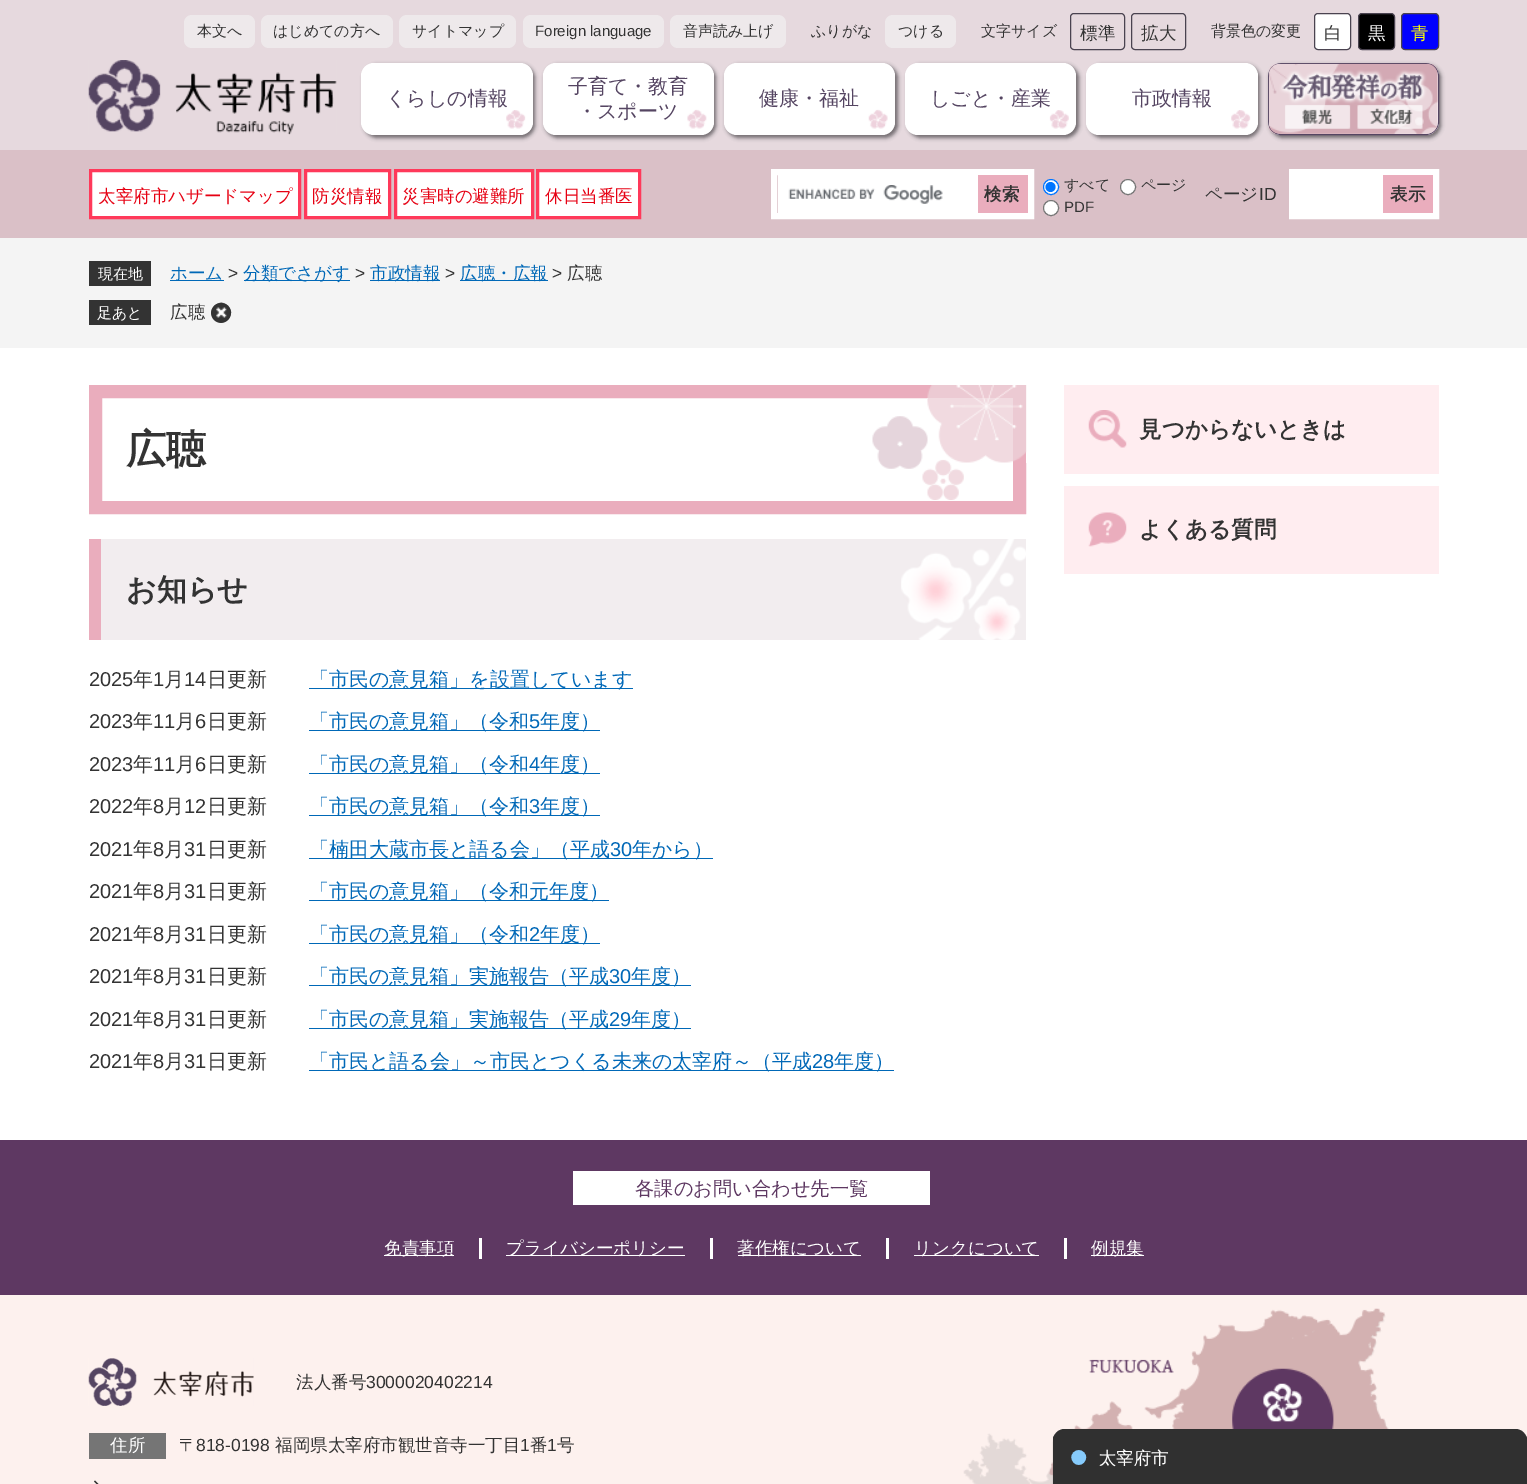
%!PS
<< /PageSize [1527 1484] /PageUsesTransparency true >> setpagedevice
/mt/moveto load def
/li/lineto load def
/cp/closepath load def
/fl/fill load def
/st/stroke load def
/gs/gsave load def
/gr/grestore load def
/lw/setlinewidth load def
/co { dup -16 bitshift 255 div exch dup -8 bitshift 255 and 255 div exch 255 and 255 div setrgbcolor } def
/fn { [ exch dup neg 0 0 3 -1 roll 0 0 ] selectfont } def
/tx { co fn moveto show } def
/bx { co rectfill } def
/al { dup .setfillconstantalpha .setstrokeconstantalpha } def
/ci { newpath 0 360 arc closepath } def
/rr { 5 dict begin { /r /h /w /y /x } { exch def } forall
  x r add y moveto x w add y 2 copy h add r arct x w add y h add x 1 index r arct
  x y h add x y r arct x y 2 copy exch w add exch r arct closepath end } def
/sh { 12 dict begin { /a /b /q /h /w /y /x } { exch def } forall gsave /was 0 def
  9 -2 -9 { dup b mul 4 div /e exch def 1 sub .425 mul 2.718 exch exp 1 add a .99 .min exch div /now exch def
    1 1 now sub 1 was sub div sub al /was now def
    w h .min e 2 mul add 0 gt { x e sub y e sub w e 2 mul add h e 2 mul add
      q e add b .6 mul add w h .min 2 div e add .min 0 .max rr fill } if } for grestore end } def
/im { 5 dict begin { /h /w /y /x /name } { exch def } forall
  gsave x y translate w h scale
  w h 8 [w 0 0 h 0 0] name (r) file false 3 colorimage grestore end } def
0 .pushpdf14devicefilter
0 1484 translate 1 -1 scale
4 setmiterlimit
0 0 1527 1484 16#FFFFFF bx
0 0 1527 150 16#E6D9DE bx
16#EEE9EB co
184 15 71 33 8 rr fl
261 15 132 33 8 rr fl
399 15 117 33 8 rr fl
523 15 141 33 8 rr fl
670 15 116 33 8 rr fl
885 15 71 33 8 rr fl
16#4A4350 co
1070.5 13.5 54 36 3.5 rr st
1131.5 13.5 54 36 3.5 rr st
16#FFFFFF co
1314.5 13.5 36 36 3.5 rr gs fl gr
16#4A4350 co
st
16#000000 co
1358.5 13.5 36 36 3.5 rr gs fl gr
16#4A4350 co
st
16#0000FF co
1401.5 13.5 37 36 3.5 rr gs fl gr
16#4A4350 co
st
16#000000 co
364 65 171 73 13 2 .5 sh
16#FFFFFF co
361 63 172 72 13 rr fl
(media/1.raw) 506 110 20 19 im
16#000000 co
545 65 171 73 13 2 .5 sh
16#FFFFFF co
543 63 171 72 13 rr fl
(media/2.raw) 687 109 20 20 im
16#000000 co
726 65 172 73 13 2 .5 sh
16#FFFFFF co
724 63 171 72 13 rr fl
(media/3.raw) 868 109 20 20 im
16#000000 co
908 65 171 73 13 2 .5 sh
16#FFFFFF co
905 63 171 72 13 rr fl
(media/4.raw) 1049 110 20 19 im
16#000000 co
1089 65 171 73 13 2 .5 sh
16#FFFFFF co
1086 63 172 72 13 rr fl
(media/5.raw) 1231 110 20 19 im
16#000000 co
1270 65 171 73 13 2 .5 sh
16#FFFFFF co
1268 63 171 72 13 rr fl
(media/6.raw) 1268 63 170 71 im
16#554562 co
1268.5 63.5 170 71 12.5 rr st
(media/7.raw) 1268 63 170 71 im
(media/8.raw) 88 60 249 75 im
0 150 1527 88 16#DAC0C7 bx
16#FFFFFF co
90.5 170.5 mt 299.5 170.5 li 299.5 217.5 li 90.5 217.5 li cp gs fl gr
16#FF395A co
3 lw
st
16#FFFFFF co
305.5 170.5 mt 389.5 170.5 li 389.5 217.5 li 305.5 217.5 li cp gs fl gr
16#FF395A co
st
16#FFFFFF co
395.5 170.5 mt 532.5 170.5 li 532.5 217.5 li 395.5 217.5 li cp gs fl gr
16#FF395A co
st
16#FFFFFF co
537.5 170.5 mt 639.5 170.5 li 639.5 217.5 li 537.5 217.5 li cp gs fl gr
16#FF395A co
st
16#FFFFFF co
6 lw
774 172 257 44 rectstroke
778 175 200 38 16#FFFFFF bx
(media/9.raw) 788 185 155 19 im
978 175 50 38 16#EAADBD bx
16#FFFFFF co
1051 187 7.5 ci gs fl gr
16#0075FF co
1 lw
st
1050.5 187 5 ci fl
16#FFFFFF co
1128 187 7.5 ci gs fl gr
16#767676 co
st
16#FFFFFF co
1051 208 7.5 ci gs fl gr
16#767676 co
st
16#FFFFFF co
6 lw
1292 172 144 44 rectstroke
1295 175 88 38 16#FFFFFF bx
1383 175 50 38 16#EAADBD bx
0 238 1527 110 16#F4F4F4 bx
89 261 62 25 16#333333 bx
170 280 54 1 16#0068B7 bx
244 280 106 1 16#0068B7 bx
370 280 70 1 16#0068B7 bx
460 280 88 1 16#0068B7 bx
89 300 62 25 16#333333 bx
221 313 10 ci fl
(media/10.raw) 211 302 21 21 im
(media/11.raw) 872 416 92 84 im
16#EAADBD co
13 lw
95.5 391.5 924 116 rectstroke
(media/12.raw) 927 385 100 78 im
101 539 925 101 16#F2EDEF bx
(media/13.raw) 901 539 125 101 im
89 539 12 101 16#EAADBD bx
309 688 324 1 16#0068B7 bx
309 730 291 1 16#0068B7 bx
309 773 291 1 16#0068B7 bx
309 815 291 1 16#0068B7 bx
309 858 404 1 16#0068B7 bx
309 900 300 1 16#0068B7 bx
309 943 291 1 16#0068B7 bx
309 985 382 1 16#0068B7 bx
309 1028 382 1 16#0068B7 bx
309 1070 585 1 16#0068B7 bx
1064 385 375 89 16#FFEDF0 bx
(media/14.raw) 1088 410 39 38 im
1064 486 375 88 16#FFEDF0 bx
(media/15.raw) 1088 512 39 35 im
0 1140 1527 155 16#5E3862 bx
573 1171 357 34 16#FFFFFF bx
479 1238 3 21 16#FFFFFF bx
384 1255 70 1 16#FFFFFF bx
710 1238 3 21 16#FFFFFF bx
506 1255 179 1 16#FFFFFF bx
886 1238 3 21 16#FFFFFF bx
738 1255 123 1 16#FFFFFF bx
1064 1238 3 21 16#FFFFFF bx
914 1255 125 1 16#FFFFFF bx
1091 1255 53 1 16#FFFFFF bx
0 1295 1527 189 16#FDF1EE bx
(media/16.raw) 963 1308 426 176 im
(media/17.raw) 88 1358 166 48 im
89 1433 77 26 16#757575 bx
16#333333 co
95 1480.5 mt 104 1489.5 li 103 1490.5 li 94 1481.5 li cp fl
16#000000 co
1053 1430 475 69 13 .5 .2 sh
(media/18.raw) 1053 1429 474 55 im
(本文へ) 197 36 /WenQuanYiZenHei-Medium 15 16#333333 tx
(はじめての方へ) 273 36 /WenQuanYiZenHei-Medium 15 16#333333 tx
(サイトマップ) 412 36 /WenQuanYiZenHei-Medium 15 16#333333 tx
(Foreign language) 535 36 /LiberationSans-Regular 15 16#333333 tx
(音声読み上げ) 683 36 /WenQuanYiZenHei-Medium 15 16#333333 tx
(ふりがな) 811 36 /WenQuanYiZenHei-Medium 15 16#333333 tx
(つける) 898 36 /WenQuanYiZenHei-Medium 15 16#333333 tx
(文字サイズ) 981 36 /WenQuanYiZenHei-Medium 15 16#333333 tx
(標準) 1080 39 /WenQuanYiZenHei-Medium 17.5 16#333333 tx
(拡大) 1141 39 /WenQuanYiZenHei-Medium 17.5 16#333333 tx
(背景色の変更) 1211 36 /WenQuanYiZenHei-Medium 15 16#333333 tx
(白) 1324 39 /WenQuanYiZenHei-Medium 17.5 16#333333 tx
(黒) 1368 39 /WenQuanYiZenHei-Medium 17.5 16#FFFFFF tx
(青) 1411 39 /WenQuanYiZenHei-Medium 17.5 16#FFFF00 tx
(くらしの情報) 386 105 /WenQuanYiZenHei-Medium 20 16#554562 tx
(子育て・教育) 568 93 /WenQuanYiZenHei-Medium 20 16#554562 tx
(・スポーツ) 577 118 /WenQuanYiZenHei-Medium 20 16#554562 tx
(健康・福祉) 759 105 /WenQuanYiZenHei-Medium 20 16#554562 tx
(しごと・産業) 930 105 /WenQuanYiZenHei-Medium 20 16#554562 tx
(市政情報) 1132 105 /WenQuanYiZenHei-Medium 20 16#554562 tx
(太宰府市ハザードマップ) 98 202 /WenQuanYiZenHei-Medium 17.5 16#E60012 tx
(防災情報) 312 202 /WenQuanYiZenHei-Medium 17.5 16#E60012 tx
(災害時の避難所) 402 202 /WenQuanYiZenHei-Medium 17.5 16#E60012 tx
(休日当番医) 545 202 /WenQuanYiZenHei-Medium 17.5 16#E60012 tx
(検索) 984 200 /WenQuanYiZenHei-Bold 17.5 16#333333 tx
(すべて) 1064 190 /WenQuanYiZenHei-Medium 15 16#333333 tx
(ページ) 1141 190 /WenQuanYiZenHei-Medium 15 16#333333 tx
(PDF) 1064 212 /LiberationSans-Regular 15 16#333333 tx
(ページ) 1205 200 /WenQuanYiZenHei-Medium 17.5 16#333333 tx
(ID) 1259 200 /LiberationSans-Regular 17.5 16#333333 tx
(表示) 1390 200 /WenQuanYiZenHei-Bold 17.5 16#333333 tx
(現在地) 98 279 /WenQuanYiZenHei-Medium 15 16#FFFFFF tx
(ホーム) 170 279 /WenQuanYiZenHei-Medium 17.5 16#0068B7 tx
(>) 228 279 /LiberationSans-Regular 17.5 16#333333 tx
(分類でさがす) 243 279 /WenQuanYiZenHei-Medium 17.5 16#0068B7 tx
(>) 355 279 /LiberationSans-Regular 17.5 16#333333 tx
(市政情報) 370 279 /WenQuanYiZenHei-Medium 17.5 16#0068B7 tx
(>) 445 279 /LiberationSans-Regular 17.5 16#333333 tx
(広聴・広報) 460 279 /WenQuanYiZenHei-Medium 17.5 16#0068B7 tx
(>) 552 279 /LiberationSans-Regular 17.5 16#333333 tx
(広聴) 567 279 /WenQuanYiZenHei-Medium 17.5 16#333333 tx
(足あと) 97 318 /WenQuanYiZenHei-Medium 15 16#FFFFFF tx
(広聴) 170 318 /WenQuanYiZenHei-Medium 17.5 16#333333 tx
(広聴) 126 463 /WenQuanYiZenHei-Bold 40 16#333333 tx
(お知らせ) 126 600 /WenQuanYiZenHei-Bold 30 16#333333 tx
(2025) 89 686 /LiberationSans-Regular 20 16#333333 tx
(年) 133 686 /WenQuanYiZenHei-Medium 20 16#333333 tx
(1) 153 686 /LiberationSans-Regular 20 16#333333 tx
(月) 164 686 /WenQuanYiZenHei-Medium 20 16#333333 tx
(14) 184 686 /LiberationSans-Regular 20 16#333333 tx
(日更新) 207 686 /WenQuanYiZenHei-Medium 20 16#333333 tx
(「市民の意見箱」を設置しています) 309 686 /WenQuanYiZenHei-Medium 20 16#0068B7 tx
(2023) 89 728 /LiberationSans-Regular 20 16#333333 tx
(年) 133 728 /WenQuanYiZenHei-Medium 20 16#333333 tx
(11) 153 728 /LiberationSans-Regular 20 16#333333 tx
(月) 175 728 /WenQuanYiZenHei-Medium 20 16#333333 tx
(6) 195 728 /LiberationSans-Regular 20 16#333333 tx
(日更新) 207 728 /WenQuanYiZenHei-Medium 20 16#333333 tx
(「市民の意見箱」（令和) 309 728 /WenQuanYiZenHei-Medium 20 16#0068B7 tx
(5) 529 728 /LiberationSans-Regular 20 16#0068B7 tx
(年度）) 540 728 /WenQuanYiZenHei-Medium 20 16#0068B7 tx
(2023) 89 771 /LiberationSans-Regular 20 16#333333 tx
(年) 133 771 /WenQuanYiZenHei-Medium 20 16#333333 tx
(11) 153 771 /LiberationSans-Regular 20 16#333333 tx
(月) 175 771 /WenQuanYiZenHei-Medium 20 16#333333 tx
(6) 195 771 /LiberationSans-Regular 20 16#333333 tx
(日更新) 207 771 /WenQuanYiZenHei-Medium 20 16#333333 tx
(「市民の意見箱」（令和) 309 771 /WenQuanYiZenHei-Medium 20 16#0068B7 tx
(4) 529 771 /LiberationSans-Regular 20 16#0068B7 tx
(年度）) 540 771 /WenQuanYiZenHei-Medium 20 16#0068B7 tx
(2022) 89 813 /LiberationSans-Regular 20 16#333333 tx
(年) 133 813 /WenQuanYiZenHei-Medium 20 16#333333 tx
(8) 153 813 /LiberationSans-Regular 20 16#333333 tx
(月) 164 813 /WenQuanYiZenHei-Medium 20 16#333333 tx
(12) 184 813 /LiberationSans-Regular 20 16#333333 tx
(日更新) 207 813 /WenQuanYiZenHei-Medium 20 16#333333 tx
(「市民の意見箱」（令和) 309 813 /WenQuanYiZenHei-Medium 20 16#0068B7 tx
(3) 529 813 /LiberationSans-Regular 20 16#0068B7 tx
(年度）) 540 813 /WenQuanYiZenHei-Medium 20 16#0068B7 tx
(2021) 89 856 /LiberationSans-Regular 20 16#333333 tx
(年) 133 856 /WenQuanYiZenHei-Medium 20 16#333333 tx
(8) 153 856 /LiberationSans-Regular 20 16#333333 tx
(月) 164 856 /WenQuanYiZenHei-Medium 20 16#333333 tx
(31) 184 856 /LiberationSans-Regular 20 16#333333 tx
(日更新) 207 856 /WenQuanYiZenHei-Medium 20 16#333333 tx
(「楠田大蔵市長と語る会」（平成) 309 856 /WenQuanYiZenHei-Medium 20 16#0068B7 tx
(30) 610 856 /LiberationSans-Regular 20 16#0068B7 tx
(年から）) 632 856 /WenQuanYiZenHei-Medium 20 16#0068B7 tx
(2021) 89 898 /LiberationSans-Regular 20 16#333333 tx
(年) 133 898 /WenQuanYiZenHei-Medium 20 16#333333 tx
(8) 153 898 /LiberationSans-Regular 20 16#333333 tx
(月) 164 898 /WenQuanYiZenHei-Medium 20 16#333333 tx
(31) 184 898 /LiberationSans-Regular 20 16#333333 tx
(日更新) 207 898 /WenQuanYiZenHei-Medium 20 16#333333 tx
(「市民の意見箱」（令和元年度）) 309 898 /WenQuanYiZenHei-Medium 20 16#0068B7 tx
(2021) 89 941 /LiberationSans-Regular 20 16#333333 tx
(年) 133 941 /WenQuanYiZenHei-Medium 20 16#333333 tx
(8) 153 941 /LiberationSans-Regular 20 16#333333 tx
(月) 164 941 /WenQuanYiZenHei-Medium 20 16#333333 tx
(31) 184 941 /LiberationSans-Regular 20 16#333333 tx
(日更新) 207 941 /WenQuanYiZenHei-Medium 20 16#333333 tx
(「市民の意見箱」（令和) 309 941 /WenQuanYiZenHei-Medium 20 16#0068B7 tx
(2) 529 941 /LiberationSans-Regular 20 16#0068B7 tx
(年度）) 540 941 /WenQuanYiZenHei-Medium 20 16#0068B7 tx
(2021) 89 983 /LiberationSans-Regular 20 16#333333 tx
(年) 133 983 /WenQuanYiZenHei-Medium 20 16#333333 tx
(8) 153 983 /LiberationSans-Regular 20 16#333333 tx
(月) 164 983 /WenQuanYiZenHei-Medium 20 16#333333 tx
(31) 184 983 /LiberationSans-Regular 20 16#333333 tx
(日更新) 207 983 /WenQuanYiZenHei-Medium 20 16#333333 tx
(「市民の意見箱」実施報告（平成) 309 983 /WenQuanYiZenHei-Medium 20 16#0068B7 tx
(30) 609 983 /LiberationSans-Regular 20 16#0068B7 tx
(年度）) 631 983 /WenQuanYiZenHei-Medium 20 16#0068B7 tx
(2021) 89 1026 /LiberationSans-Regular 20 16#333333 tx
(年) 133 1026 /WenQuanYiZenHei-Medium 20 16#333333 tx
(8) 153 1026 /LiberationSans-Regular 20 16#333333 tx
(月) 164 1026 /WenQuanYiZenHei-Medium 20 16#333333 tx
(31) 184 1026 /LiberationSans-Regular 20 16#333333 tx
(日更新) 207 1026 /WenQuanYiZenHei-Medium 20 16#333333 tx
(「市民の意見箱」実施報告（平成) 309 1026 /WenQuanYiZenHei-Medium 20 16#0068B7 tx
(29) 609 1026 /LiberationSans-Regular 20 16#0068B7 tx
(年度）) 631 1026 /WenQuanYiZenHei-Medium 20 16#0068B7 tx
(2021) 89 1068 /LiberationSans-Regular 20 16#333333 tx
(年) 133 1068 /WenQuanYiZenHei-Medium 20 16#333333 tx
(8) 153 1068 /LiberationSans-Regular 20 16#333333 tx
(月) 164 1068 /WenQuanYiZenHei-Medium 20 16#333333 tx
(31) 184 1068 /LiberationSans-Regular 20 16#333333 tx
(日更新) 207 1068 /WenQuanYiZenHei-Medium 20 16#333333 tx
(「市民と語る会」～市民とつくる未来の太宰府～（平成) 309 1068 /WenQuanYiZenHei-Medium 20 16#0068B7 tx
(28) 812 1068 /LiberationSans-Regular 20 16#0068B7 tx
(年度）) 834 1068 /WenQuanYiZenHei-Medium 20 16#0068B7 tx
(見つからないときは) 1139 437 /WenQuanYiZenHei-Bold 22.5 16#333333 tx
(よくある質問) 1139 537 /WenQuanYiZenHei-Bold 22.5 16#333333 tx
(各課のお問い合わせ先一覧) 635 1195 /WenQuanYiZenHei-Medium 19.25 16#5E3862 tx
(免責事項) 384 1254 /WenQuanYiZenHei-Medium 17.5 16#FFFFFF tx
(プライバシーポリシー) 506 1254 /WenQuanYiZenHei-Medium 17.5 16#FFFFFF tx
(著作権について) 737 1254 /WenQuanYiZenHei-Medium 17.5 16#FFFFFF tx
(リンクについて) 914 1254 /WenQuanYiZenHei-Medium 17.5 16#FFFFFF tx
(例規集) 1091 1254 /WenQuanYiZenHei-Medium 17.5 16#FFFFFF tx
(法人番号) 296 1388 /WenQuanYiZenHei-Medium 17.5 16#333333 tx
(3000020402214) 366 1388 /LiberationSans-Regular 17.5 16#333333 tx
(住所) 110 1451 /WenQuanYiZenHei-Medium 17.5 16#FFFFFF tx
(〒) 179 1451 /WenQuanYiZenHei-Medium 17.5 16#333333 tx
(818-0198) 196 1451 /LiberationSans-Regular 17.5 16#333333 tx
(福岡県太宰府市観世音寺一丁目) 275 1451 /WenQuanYiZenHei-Medium 17.5 16#333333 tx
(1) 520 1451 /LiberationSans-Regular 17.5 16#333333 tx
(番) 530 1451 /WenQuanYiZenHei-Medium 17.5 16#333333 tx
(1) 547 1451 /LiberationSans-Regular 17.5 16#333333 tx
(号) 557 1451 /WenQuanYiZenHei-Medium 17.5 16#333333 tx
.poppdf14devicefilter showpage
